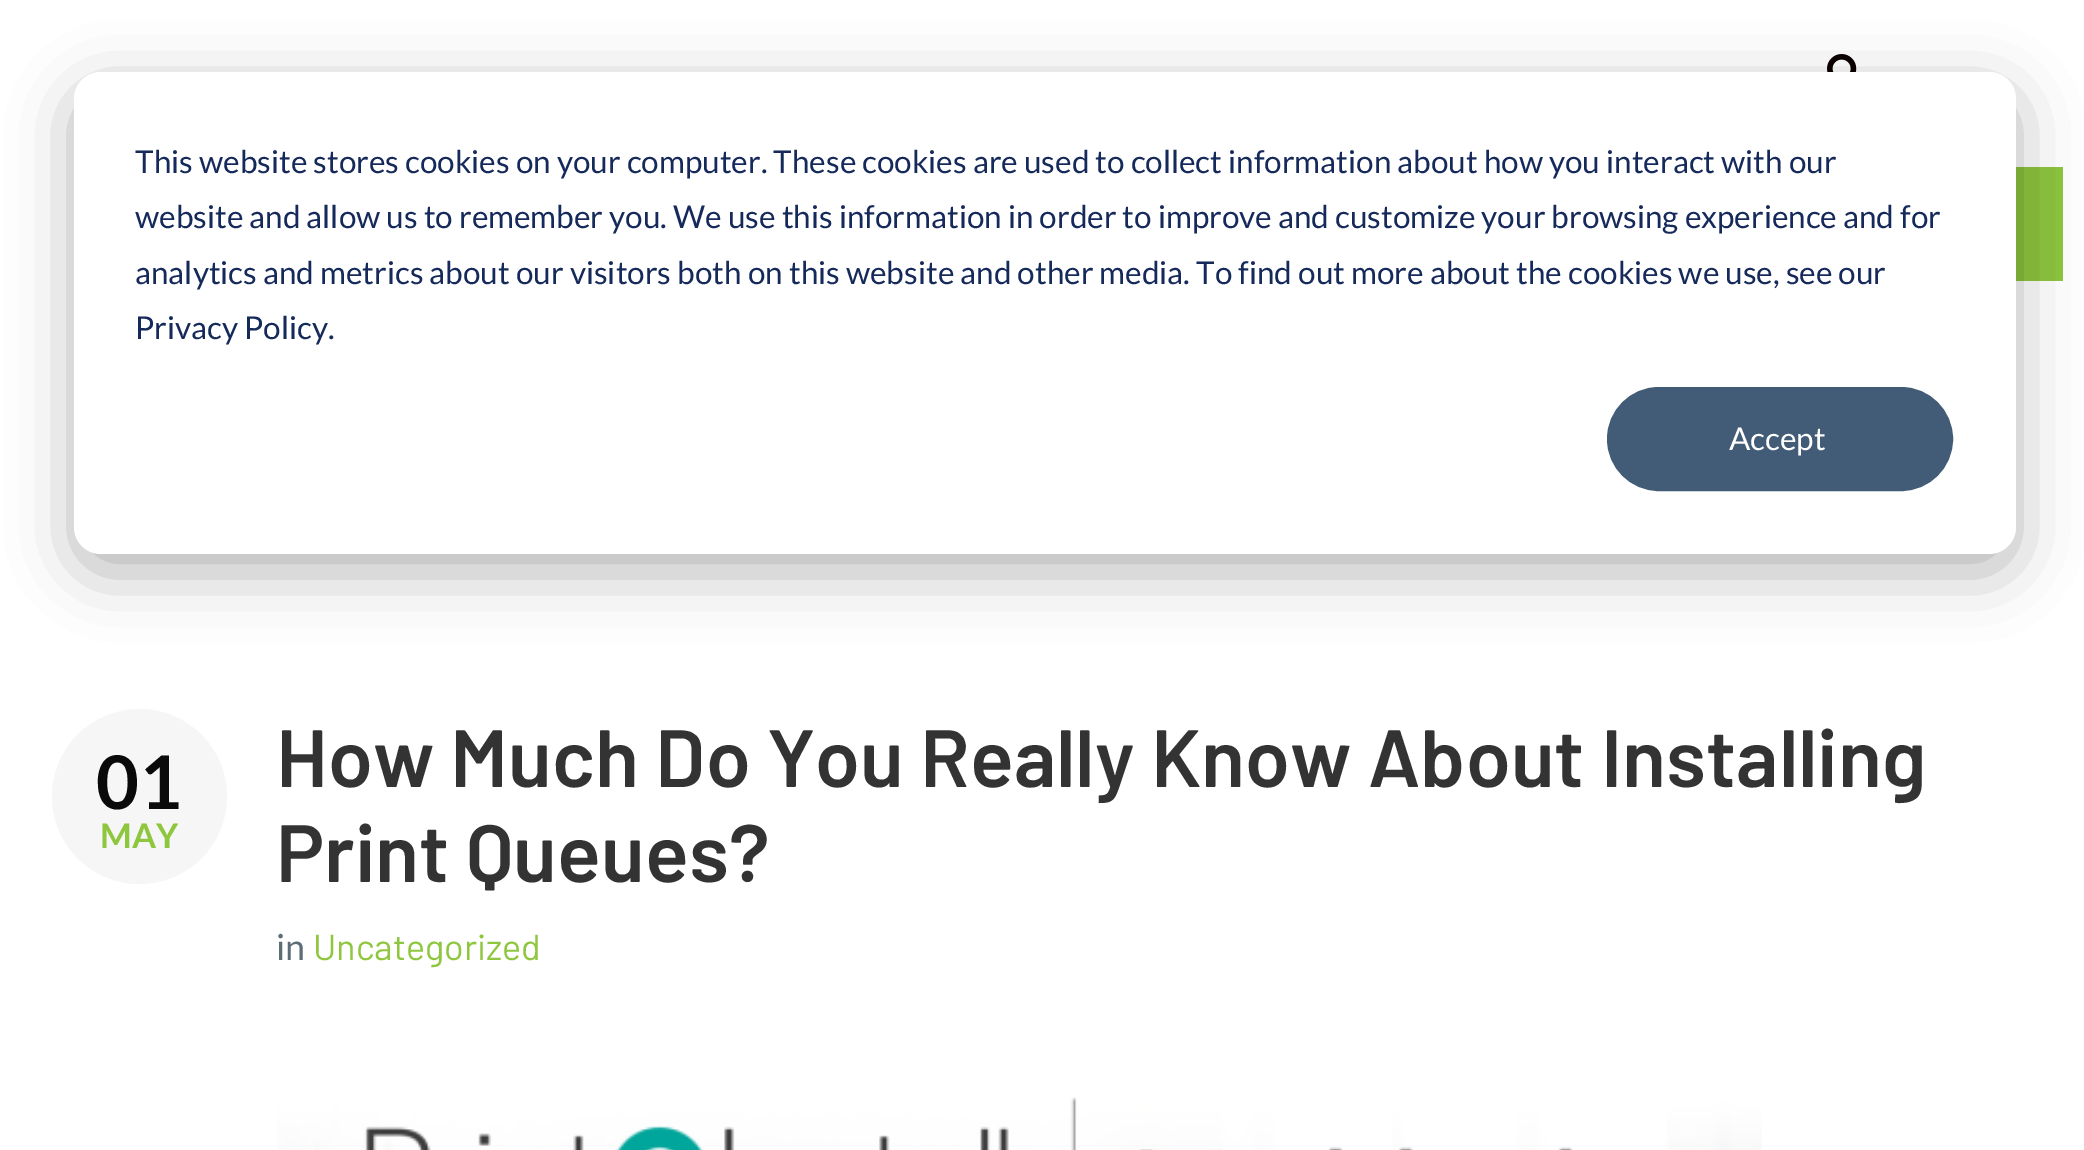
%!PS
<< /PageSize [2084 1150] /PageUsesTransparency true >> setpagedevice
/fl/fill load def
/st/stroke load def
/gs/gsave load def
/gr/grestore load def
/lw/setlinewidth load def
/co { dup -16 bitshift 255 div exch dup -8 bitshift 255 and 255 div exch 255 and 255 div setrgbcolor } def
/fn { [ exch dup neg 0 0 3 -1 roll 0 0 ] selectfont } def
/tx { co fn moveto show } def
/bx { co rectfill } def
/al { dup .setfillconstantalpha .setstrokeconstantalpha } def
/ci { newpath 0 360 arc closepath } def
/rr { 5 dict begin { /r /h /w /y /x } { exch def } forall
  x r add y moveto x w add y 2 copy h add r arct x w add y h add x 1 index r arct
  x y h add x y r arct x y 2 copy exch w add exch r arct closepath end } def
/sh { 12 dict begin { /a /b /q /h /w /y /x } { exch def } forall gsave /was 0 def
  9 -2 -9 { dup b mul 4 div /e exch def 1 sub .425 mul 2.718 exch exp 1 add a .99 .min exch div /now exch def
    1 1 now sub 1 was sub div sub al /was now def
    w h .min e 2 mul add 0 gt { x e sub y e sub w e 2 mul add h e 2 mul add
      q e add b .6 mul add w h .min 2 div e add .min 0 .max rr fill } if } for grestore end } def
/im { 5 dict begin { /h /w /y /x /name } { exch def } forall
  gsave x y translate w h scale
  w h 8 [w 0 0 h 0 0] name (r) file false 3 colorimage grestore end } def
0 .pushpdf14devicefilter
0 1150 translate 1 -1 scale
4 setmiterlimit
0 0 2084 1150 16#FFFFFF bx
(media/1.raw) 1827 54 30 18 im
2016 167 47 114 16#8DC53E bx
16#000000 co
74 90 1942 482 27 31.5 .28 sh
16#FFFFFF co
74 72 1942 482 27 rr fl
16#425B76 co
1608 388 344 102 51 rr gs fl gr
2 lw
st
16#F6F6F6 co
139.5 796.5 87.5 ci fl
(media/2.raw) 277 1097 1485 53 im
(This website stores cookies on your computer. These cookies are used to collect information about how you interact with our) 135 173 /Lato-Regular 31.5 16#15295A tx
(website and allow us to remember you. We use this information in order to improve and customize your browsing experience and for) 135 228 /Lato-Regular 31.5 16#15295A tx
(analytics and metrics about our visitors both on this website and other media. To find out more about the cookies we use, see our) 135 284 /Lato-Regular 31.5 16#15295A tx
(Privacy Policy.) 135 339 /Lato-Regular 31.5 16#15295A tx
(Accept) 1729 450 /Lato-Regular 31.5 16#FFFFFF tx
(01) 96 809 /Lato-Bold 74 16#0A0A0A tx
(MAY) 100 848 /Lato-Bold 34 16#8EC63D tx
(How Much Do You Really Know About Installing) 276 787 /Barlow-SemiBold 81 16#333333 tx
(Print Queues?) 276 882 /Barlow-SemiBold 81 16#333333 tx
(in) 276 960 /Lato-Regular 36 16#5D6D76 tx
(Uncategorized) 313 960 /Barlow-Regular 36 16#8EC63D tx
.poppdf14devicefilter showpage
